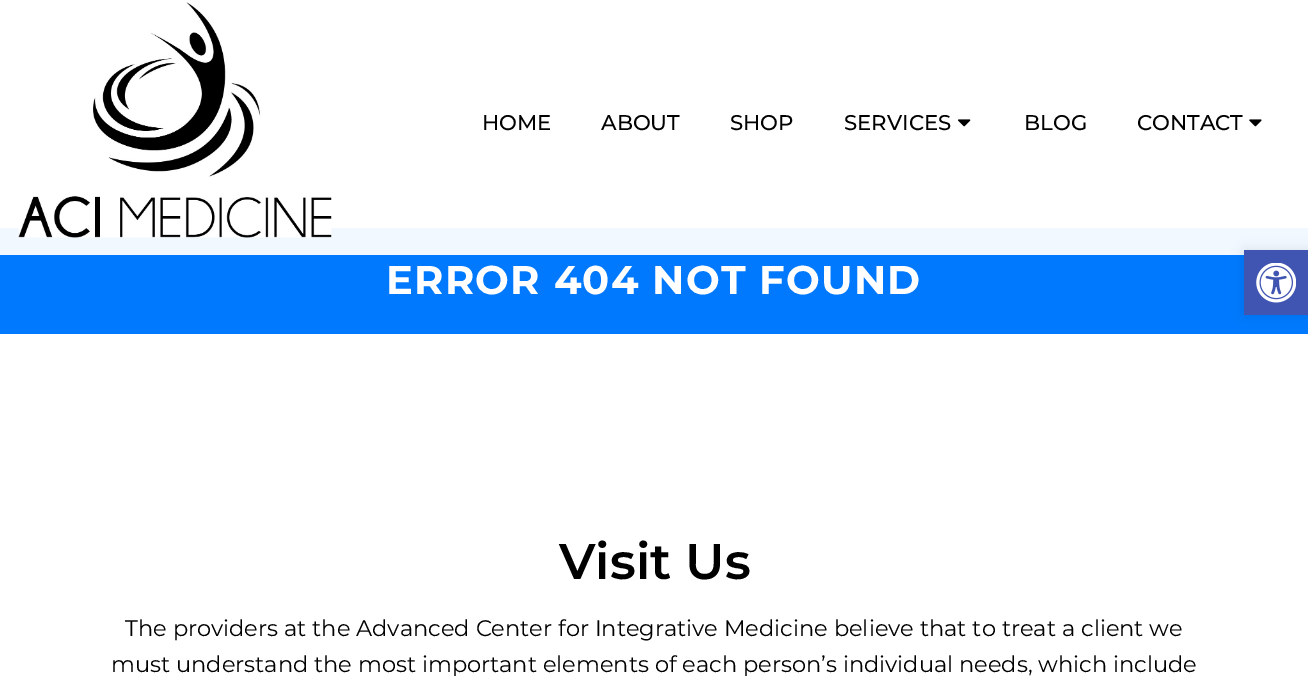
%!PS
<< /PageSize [1308 676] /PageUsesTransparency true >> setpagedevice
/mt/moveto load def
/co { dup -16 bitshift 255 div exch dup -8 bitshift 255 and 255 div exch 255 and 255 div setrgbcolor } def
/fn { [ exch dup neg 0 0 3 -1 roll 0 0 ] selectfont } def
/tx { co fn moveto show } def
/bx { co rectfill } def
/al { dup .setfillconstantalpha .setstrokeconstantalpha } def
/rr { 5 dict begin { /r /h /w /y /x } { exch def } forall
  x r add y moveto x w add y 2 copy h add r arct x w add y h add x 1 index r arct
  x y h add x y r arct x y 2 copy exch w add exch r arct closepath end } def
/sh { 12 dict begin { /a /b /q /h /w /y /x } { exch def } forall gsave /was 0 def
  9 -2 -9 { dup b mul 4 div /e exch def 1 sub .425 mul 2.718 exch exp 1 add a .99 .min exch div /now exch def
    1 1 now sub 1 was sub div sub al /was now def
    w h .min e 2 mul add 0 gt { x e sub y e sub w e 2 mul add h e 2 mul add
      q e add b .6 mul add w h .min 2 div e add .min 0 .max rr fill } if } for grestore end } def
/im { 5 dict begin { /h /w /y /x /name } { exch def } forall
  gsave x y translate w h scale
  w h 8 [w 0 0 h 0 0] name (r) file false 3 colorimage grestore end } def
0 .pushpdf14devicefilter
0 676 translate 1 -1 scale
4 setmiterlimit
0 0 1308 676 16#FFFFFF bx
0 228 1308 27 16#F2F8FF bx
(media/1.raw) 18 2 314 236 im
(media/2.raw) 958 119 13 8 im
(media/3.raw) 1249 119 13 8 im
0 255 1308 79 16#0079FE bx
16#000000 co
1244 250 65 65 0 6 .1 sh
1244 250 64 65 16#4054B2 bx
(media/4.raw) 1256 263 40 40 im
(HOME) 482 130 /Montserrat-Medium 21.25 16#000000 tx
(ABOUT) 601 130 /Montserrat-Medium 21.25 16#000000 tx
(SHOP) 730 130 /Montserrat-Medium 21.25 16#000000 tx
(SERVICES) 844 130 /Montserrat-Medium 21.25 16#000000 tx
(BLOG) 1024 130 /Montserrat-Medium 21.25 16#000000 tx
(CONTACT) 1137 130 /Montserrat-Medium 21.25 16#000000 tx
/Montserrat-Bold 40 fn
16#FFFFFF co
386 294 mt 1.25 0 (ERROR 404 NOT FOUND) ashow
(Visit Us) 559 579 /Montserrat-SemiBold 50 16#000000 tx
(The providers at the Advanced Center for Integrative Medicine believe that to treat a client we) 125 636 /Montserrat-Regular 22.5 16#000000 tx
(must understand the most important elements of each person’s individual needs, which include) 111 672 /Montserrat-Regular 22.5 16#000000 tx
.poppdf14devicefilter showpage
